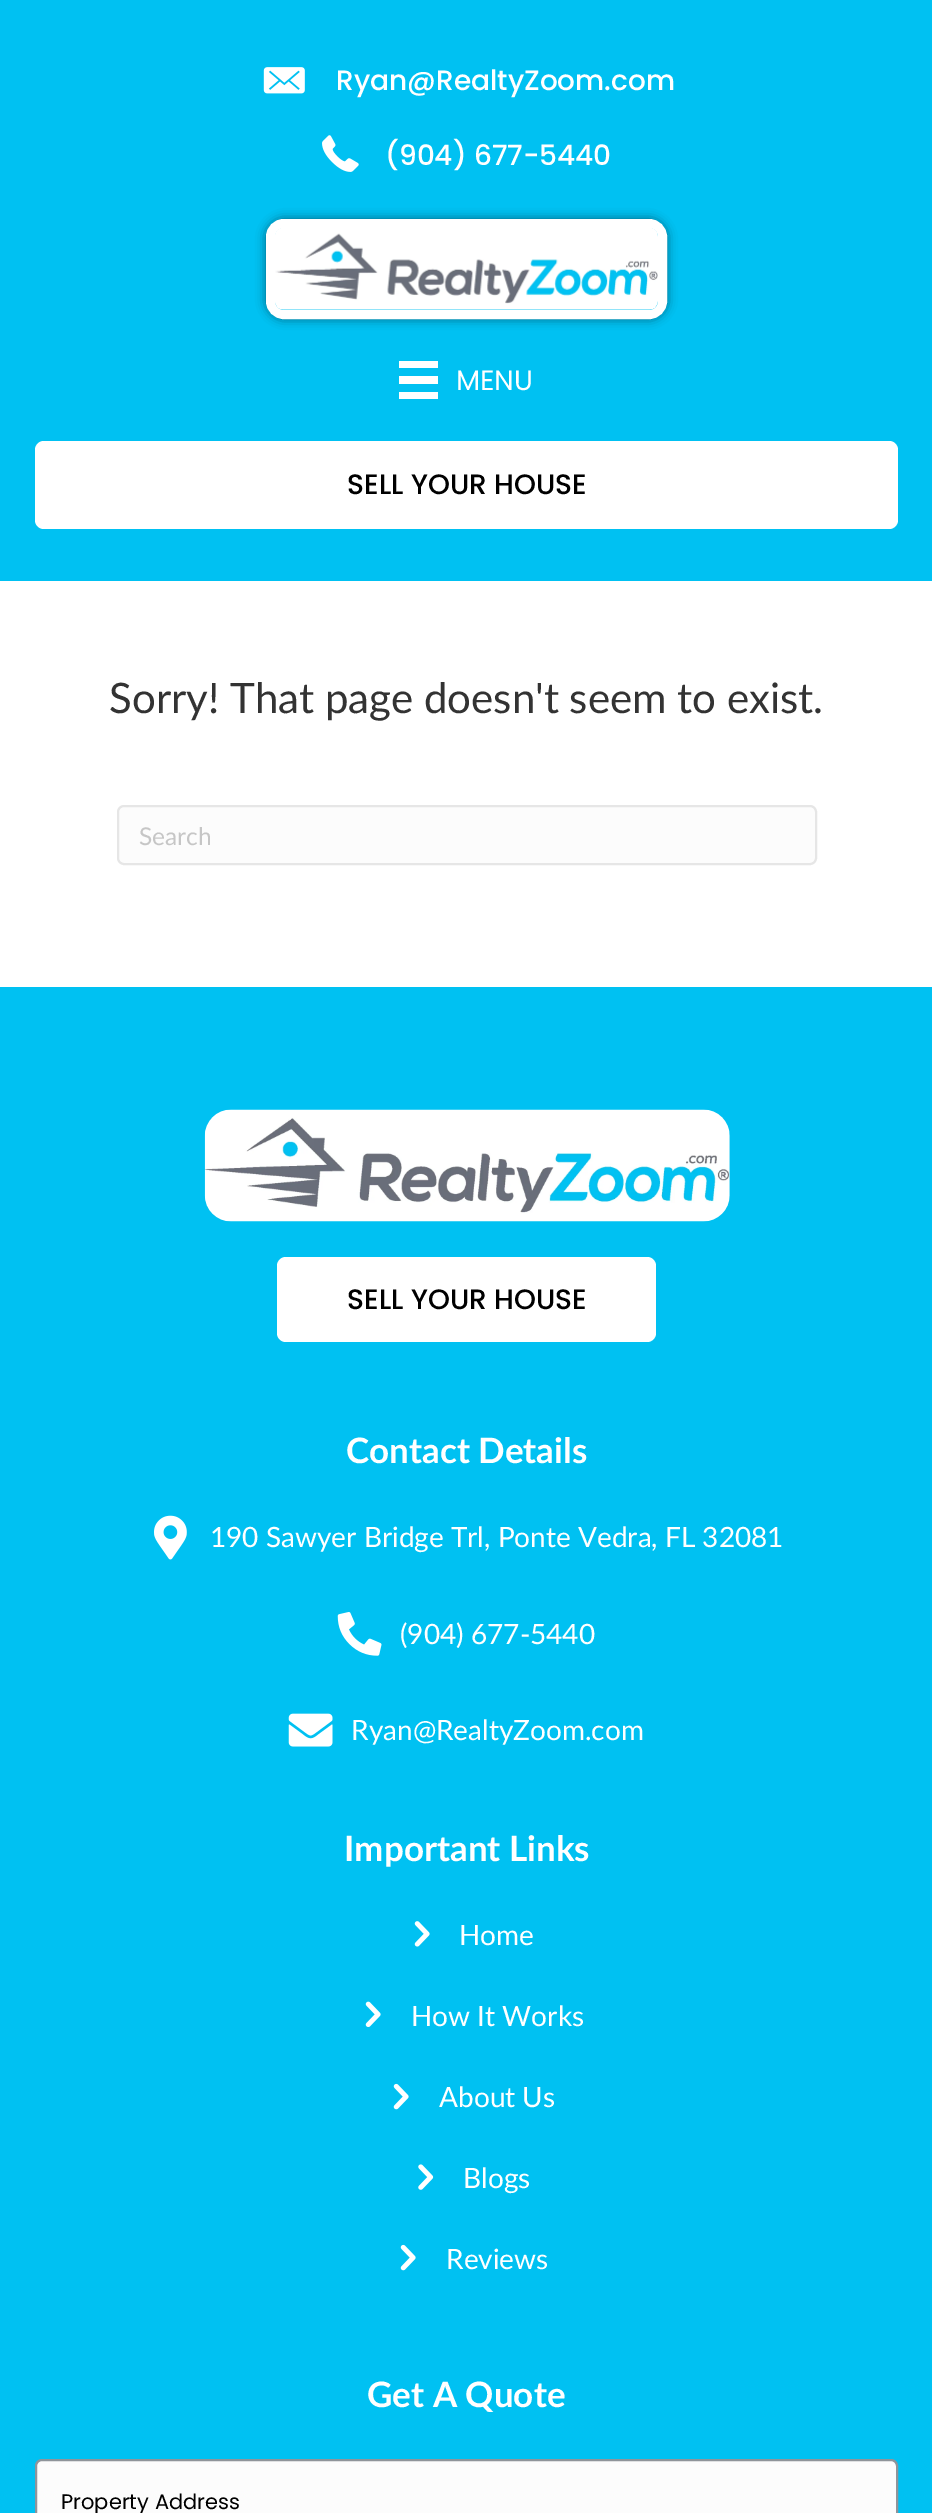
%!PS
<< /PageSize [932 2513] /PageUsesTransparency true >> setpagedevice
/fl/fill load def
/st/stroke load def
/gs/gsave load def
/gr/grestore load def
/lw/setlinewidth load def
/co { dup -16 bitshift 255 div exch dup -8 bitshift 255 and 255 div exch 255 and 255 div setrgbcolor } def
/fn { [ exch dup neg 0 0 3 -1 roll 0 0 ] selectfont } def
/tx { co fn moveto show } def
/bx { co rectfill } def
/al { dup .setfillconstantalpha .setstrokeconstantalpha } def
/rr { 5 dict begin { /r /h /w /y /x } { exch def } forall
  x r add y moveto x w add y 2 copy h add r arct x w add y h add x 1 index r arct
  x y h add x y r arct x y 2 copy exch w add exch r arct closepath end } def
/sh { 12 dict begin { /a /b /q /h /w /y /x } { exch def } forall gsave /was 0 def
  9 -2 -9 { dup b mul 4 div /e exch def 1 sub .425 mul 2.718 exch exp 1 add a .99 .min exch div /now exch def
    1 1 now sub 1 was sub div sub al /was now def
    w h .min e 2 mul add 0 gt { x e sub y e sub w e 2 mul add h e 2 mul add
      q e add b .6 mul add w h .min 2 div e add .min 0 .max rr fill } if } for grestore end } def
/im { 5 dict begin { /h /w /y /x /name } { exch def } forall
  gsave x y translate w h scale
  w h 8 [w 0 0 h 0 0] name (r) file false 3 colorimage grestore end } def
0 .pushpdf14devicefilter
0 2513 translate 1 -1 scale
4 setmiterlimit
0 0 932 2513 16#FFFFFF bx
0 0 932 581 16#00C1F2 bx
(media/1.raw) 263 67 42 27 im
(media/2.raw) 322 135 37 37 im
16#000000 co
266 219 401 100 18 5 .5 sh
16#FFFFFF co
9 lw
270.5 223.5 392 91 13.5 rr st
(media/3.raw) 275 228 383 82 im
399 361 39 7 16#FFFFFF bx
399 376 39 8 16#FFFFFF bx
399 392 39 7 16#FFFFFF bx
35 441 863 88 9 rr fl
16#FCFCFC co
118 806 698 58 6 rr gs fl gr
16#E6E6E6 co
2 lw
st
0 987 932 1526 16#00C1F2 bx
(media/4.raw) 204 1109 526 113 im
16#FFFFFF co
277 1257 379 85 9 rr fl
(media/5.raw) 154 1515 33 45 im
(media/6.raw) 337 1612 45 44 im
(media/7.raw) 288 1713 45 34 im
(media/8.raw) 414 1921 16 26 im
(media/9.raw) 365 2001 16 26 im
(media/10.raw) 393 2083 16 27 im
(media/11.raw) 418 2164 16 26 im
(media/10.raw) 400 2244 16 27 im
16#FCFCFC co
36 2460 861 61 6 rr gs fl gr
16#8F949A co
st
(Ryan@RealtyZoom.com) 336 90 /Poppins-Medium 28 16#FFFFFF tx
(\(904\) 677-5440) 385 165 /Poppins-Medium 28 16#FFFFFF tx
(MENU) 456 390 /Poppins-Regular 28 16#FFFFFF tx
(SELL YOUR HOUSE) 347 494 /Poppins-Medium 28 16#000000 tx
(Sorry! That page doesn't seem to exist.) 109 713 /Lato-Regular 42 16#333333 tx
(Search) 139 845 /Lato-Regular 24.5 16#C6C6C6 tx
(SELL YOUR HOUSE) 347 1309 /Poppins-Medium 28 16#000000 tx
(Contact Details) 346 1463 /Lato-Bold 35 16#FFFFFF tx
(190 Sawyer Bridge Trl, Ponte Vedra, FL 32081) 210 1547 /Lato-Regular 28 16#FFFFFF tx
(\(904\) 677-5440) 400 1644 /Lato-Regular 28 16#FFFFFF tx
(Ryan@RealtyZoom.com) 351 1740 /Lato-Regular 28 16#FFFFFF tx
(Important Links) 344 1861 /Lato-Bold 35 16#FFFFFF tx
(Home) 459 1945 /Lato-Regular 28 16#FFFFFF tx
(How It Works) 411 2026 /Lato-Regular 28 16#FFFFFF tx
(About Us) 439 2107 /Lato-Regular 28 16#FFFFFF tx
(Blogs) 463 2188 /Lato-Regular 28 16#FFFFFF tx
(Reviews) 446 2269 /Lato-Regular 28 16#FFFFFF tx
(Get A Quote) 367 2407 /Lato-Bold 35 16#FFFFFF tx
(Property Address) 61 2509 /Poppins-Regular 21 16#000000 tx
.poppdf14devicefilter showpage
